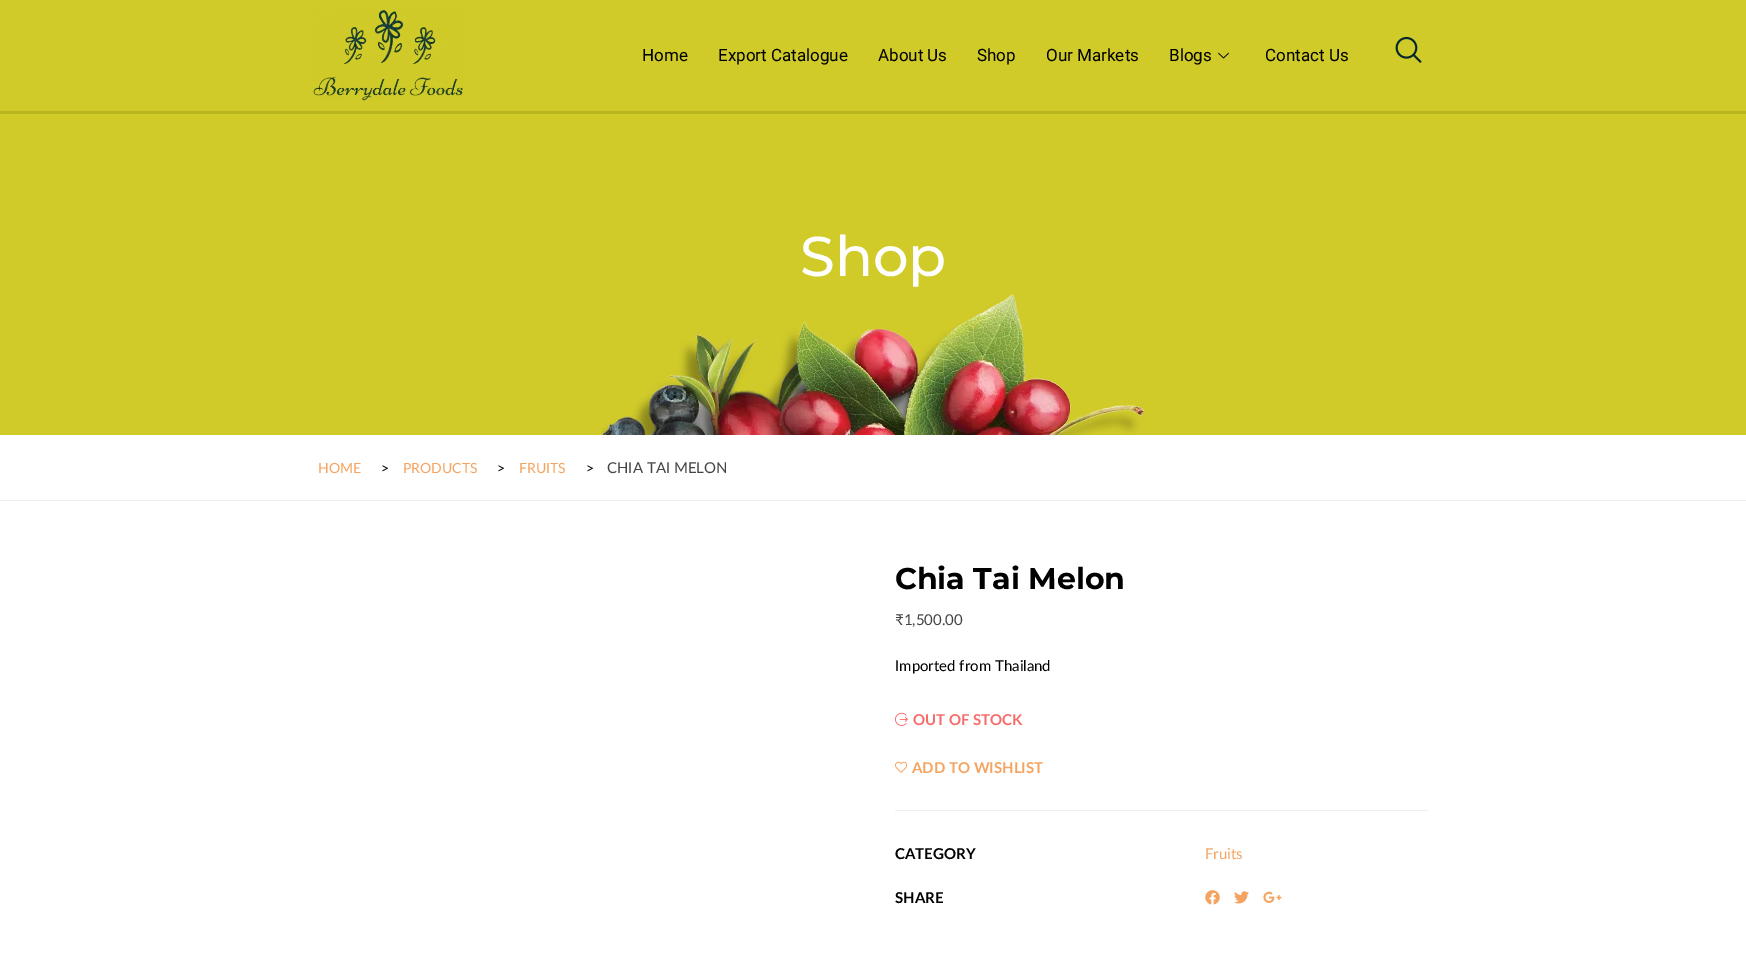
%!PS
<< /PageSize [1746 962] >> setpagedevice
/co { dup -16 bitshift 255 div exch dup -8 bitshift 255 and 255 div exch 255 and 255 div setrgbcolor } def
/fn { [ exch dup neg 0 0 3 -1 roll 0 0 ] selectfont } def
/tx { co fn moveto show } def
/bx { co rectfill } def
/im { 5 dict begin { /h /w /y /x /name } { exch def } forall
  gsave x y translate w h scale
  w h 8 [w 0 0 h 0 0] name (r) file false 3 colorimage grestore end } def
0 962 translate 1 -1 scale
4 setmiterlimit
0 0 1746 962 16#FFFFFF bx
0 0 1746 111 16#D0CB29 bx
0 111 1746 3 16#B9B51F bx
(media/1.raw) 313 10 150 91 im
(media/2.raw) 1218 52 11 7 im
(media/3.raw) 1395 36 27 27 im
0 114 1746 321 16#D0CB29 bx
(media/4.raw) 601 294 544 141 im
0 500 1746 1 16#EEEEEE bx
(media/5.raw) 895 712 13 14 im
(media/6.raw) 895 761 13 12 im
895 810 533 1 16#F1EEEA bx
(media/7.raw) 1205 890 15 15 im
(media/8.raw) 1234 891 15 13 im
(media/9.raw) 1263 891 19 12 im
(Home) 642 61 /Roboto-Regular 17 16#000000 tx
(Export Catalogue) 718 61 /Roboto-Regular 17 16#000000 tx
(About Us) 878 61 /Roboto-Regular 17 16#000000 tx
(Shop) 977 61 /Roboto-Regular 17 16#000000 tx
(Our Markets) 1046 61 /Roboto-Regular 17 16#000000 tx
(Blogs) 1169 61 /Roboto-Regular 17 16#000000 tx
(Contact Us) 1265 61 /Roboto-Regular 17 16#000000 tx
(Shop) 800 276 /Montserrat-Medium 56 16#FFFFFF tx
(HOME) 318 473 /Lato-Regular 14 16#F4A460 tx
(>) 381 473 /Lato-Regular 14 16#000000 tx
(PRODUCTS) 403 473 /Lato-Regular 14 16#F4A460 tx
(>) 497 473 /Lato-Regular 14 16#000000 tx
(FRUITS) 519 473 /Lato-Regular 14 16#F4A460 tx
(>) 586 473 /Lato-Regular 14 16#000000 tx
(CHIA TAI MELON) 607 473 /Lato-Regular 15 16#444444 tx
(Chia Tai Melon) 895 589 /Montserrat-Bold 30 16#000000 tx
(₹1,500.00) 895 625 /Lato-Regular 15 16#444444 tx
(Imported from Thailand) 895 671 /Lato-Regular 15 16#000000 tx
(OUT OF STOCK) 913 725 /Lato-Bold 15 16#F76B6A tx
(ADD TO WISHLIST) 912 773 /Lato-Bold 15 16#F4A460 tx
(CATEGORY) 895 859 /Lato-Bold 15 16#000000 tx
(Fruits) 1205 859 /Lato-Regular 15 16#F4A460 tx
(SHARE) 895 903 /Lato-Bold 15 16#000000 tx
showpage
